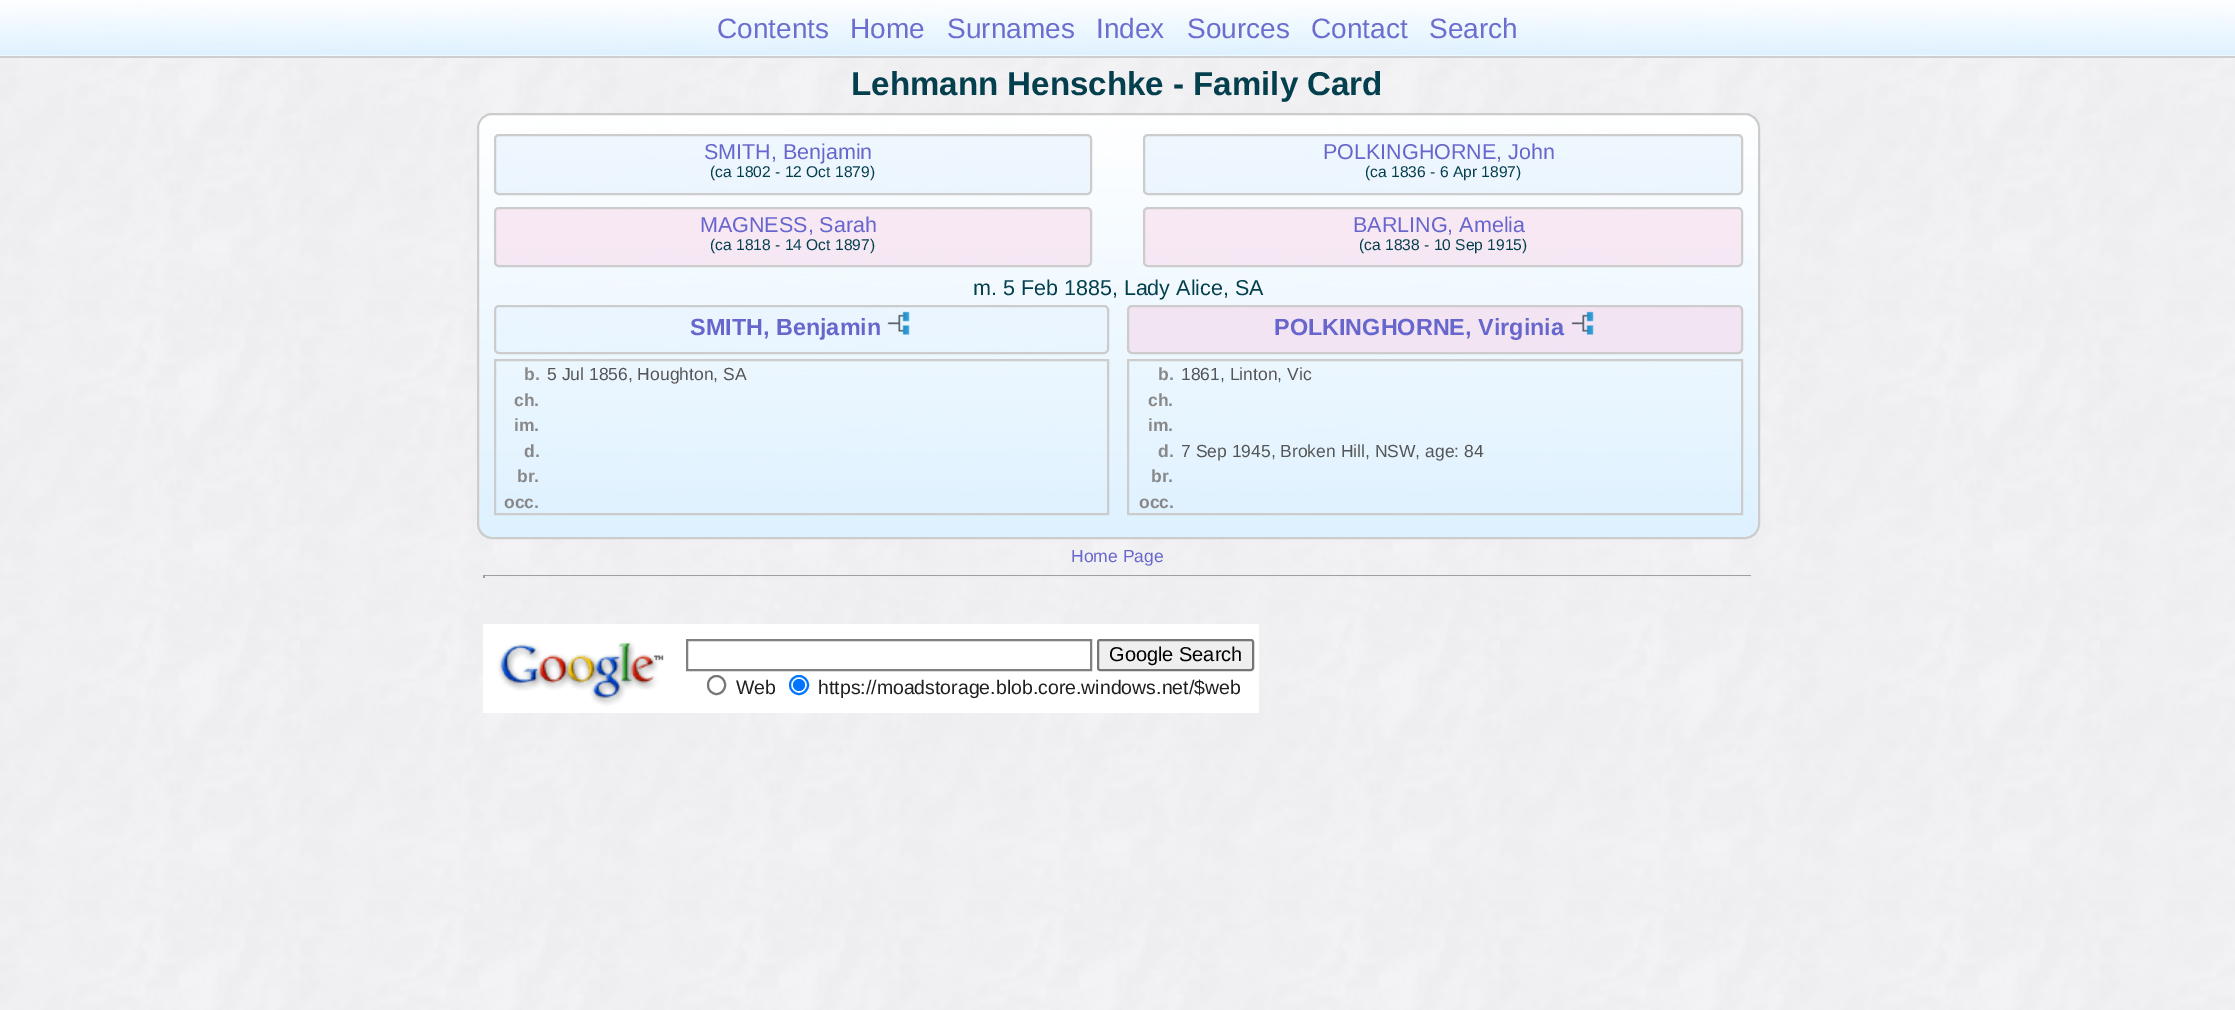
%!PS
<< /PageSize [2235 1010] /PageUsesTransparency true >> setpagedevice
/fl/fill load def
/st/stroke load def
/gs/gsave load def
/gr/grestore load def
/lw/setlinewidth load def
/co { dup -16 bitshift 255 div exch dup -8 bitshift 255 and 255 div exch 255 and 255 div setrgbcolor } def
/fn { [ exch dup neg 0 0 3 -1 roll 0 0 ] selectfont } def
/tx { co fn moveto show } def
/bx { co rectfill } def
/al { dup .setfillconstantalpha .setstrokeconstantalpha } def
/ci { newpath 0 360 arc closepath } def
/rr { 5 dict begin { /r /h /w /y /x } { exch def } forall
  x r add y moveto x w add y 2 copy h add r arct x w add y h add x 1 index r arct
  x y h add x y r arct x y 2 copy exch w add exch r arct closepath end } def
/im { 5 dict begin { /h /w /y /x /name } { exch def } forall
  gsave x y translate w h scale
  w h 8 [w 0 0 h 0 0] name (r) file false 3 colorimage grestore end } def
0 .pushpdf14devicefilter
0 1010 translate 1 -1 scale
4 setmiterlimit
0 0 2235 1010 16#FFFFFF bx
(media/1.raw) 0 0 2235 1010 im
0.95 al
0 0 2235 56 16#DEF1FF bx
1 al
(media/2.raw) 0 0 2235 57 im
0.95 al
0 56 2235 2 16#CCCCCC bx
0 0 2235 56 16#DEF1FF bx
1 al
(media/3.raw) 0 0 2235 57 im
0.95 al
0 56 2235 1 16#CCCCCC bx
1 al
16#DEF1FF co
477 113 1283 426 15 rr fl
(media/4.raw) 477 114 1283 425 im
16#CCCCCC co
2 lw
478 114 1281 424 14 rr st
0.51 al
16#E0EFFE co
495 135 596 59 4 rr fl
1 al
16#CCCCCC co
495 135 596 59 4 rr st
0.51 al
16#E0EFFE co
1144 135 598 59 4 rr fl
1 al
16#CCCCCC co
1144 135 598 59 4 rr st
0.28 al
16#FCB7D6 co
495 208 596 58 4 rr fl
1 al
16#CCCCCC co
495 208 596 58 4 rr st
0.28 al
16#FCB7D6 co
1144 208 598 58 4 rr fl
1 al
16#CCCCCC co
1144 208 598 58 4 rr st
0.3 al
16#E0EFFE co
495 306 613 47 4 rr fl
1 al
16#CCCCCC co
495 306 613 47 4 rr st
(media/5.raw) 887 311 23 24 im
0.3 al
16#FCB7D6 co
1128 306 614 47 4 rr fl
1 al
16#CCCCCC co
1128 306 614 47 4 rr st
(media/6.raw) 1571 311 23 24 im
495 360 613 154 rectstroke
1128 360 614 154 rectstroke
483 575 1269 1 16#9F9F9F bx
1751 575 1 3 16#EEEEEE bx
483 576 1269 2 16#EEEEEE bx
483 575 2 3 16#9F9F9F bx
483 624 776 89 16#FFFFFF bx
(media/7.raw) 497 641 167 65 im
16#808080 co
687 640 404 30 rectstroke
16#EFEFEF co
1098 640 155 30 2 rr gs fl gr
16#767676 co
st
708 676 17 18 8.5 rr st
16#0075FF co
799 685 9 ci st
799 685 6 ci fl
(Contents) 717 38 /LiberationSans-Regular 28 16#6D6DCF tx
(Home) 850 38 /LiberationSans-Regular 28 16#6D6DCF tx
(Surnames) 947 38 /LiberationSans-Regular 28 16#6D6DCF tx
(Index) 1096 38 /LiberationSans-Regular 28 16#6D6DCF tx
(Sources) 1187 38 /LiberationSans-Regular 28 16#6D6DCF tx
(Contact) 1311 38 /LiberationSans-Regular 28 16#6D6DCF tx
(Search) 1429 38 /LiberationSans-Regular 28 16#6D6DCF tx
(Lehmann Henschke - Family Card) 851 95 /LiberationSans-Bold 33.1 16#043F4E tx
(SMITH, Benjamin) 704 159 /LiberationSans-Regular 21.5 16#6666CC tx
(\(ca 1802 - 12 Oct 1879\)) 710 177 /LiberationSans-Regular 15.6 16#043F4E tx
(POLKINGHORNE, John) 1323 159 /LiberationSans-Regular 21.5 16#6666CC tx
(\(ca 1836 - 6 Apr 1897\)) 1365 177 /LiberationSans-Regular 15.6 16#043F4E tx
(MAGNESS, Sarah) 700 232 /LiberationSans-Regular 21.5 16#6666CC tx
(\(ca 1818 - 14 Oct 1897\)) 710 250 /LiberationSans-Regular 15.6 16#043F4E tx
(BARLING, Amelia) 1353 232 /LiberationSans-Regular 21.5 16#6666CC tx
(\(ca 1838 - 10 Sep 1915\)) 1359 250 /LiberationSans-Regular 15.6 16#043F4E tx
(m. 5 Feb 1885, Lady Alice, SA) 973 295 /LiberationSans-Regular 21.5 16#043F4E tx
(SMITH, Benjamin) 690 335 /LiberationSans-Bold 23.4 16#6666CC tx
(POLKINGHORNE, Virginia) 1274 335 /LiberationSans-Bold 23.4 16#6666CC tx
(b.) 524 380 /LiberationSans-Bold 17.5 16#888888 tx
(5 Jul 1856, Houghton, SA) 547 380 /LiberationSans-Regular 17.5 16#555555 tx
(ch.) 514 406 /LiberationSans-Bold 17.5 16#888888 tx
(im.) 514 431 /LiberationSans-Bold 17.5 16#888888 tx
(d.) 524 457 /LiberationSans-Bold 17.5 16#888888 tx
(br.) 517 482 /LiberationSans-Bold 17.5 16#888888 tx
(occ.) 504 508 /LiberationSans-Bold 17.5 16#888888 tx
(b.) 1158 380 /LiberationSans-Bold 17.5 16#888888 tx
(1861, Linton, Vic) 1181 380 /LiberationSans-Regular 17.5 16#555555 tx
(ch.) 1148 406 /LiberationSans-Bold 17.5 16#888888 tx
(im.) 1148 431 /LiberationSans-Bold 17.5 16#888888 tx
(d.) 1158 457 /LiberationSans-Bold 17.5 16#888888 tx
(7 Sep 1945, Broken Hill, NSW, age: 84) 1181 457 /LiberationSans-Regular 17.5 16#555555 tx
(br.) 1151 482 /LiberationSans-Bold 17.5 16#888888 tx
(occ.) 1139 508 /LiberationSans-Bold 17.5 16#888888 tx
(Home Page) 1071 562 /LiberationSans-Regular 17.5 16#6666CC tx
(Google Search) 1109 661 /LiberationSans-Regular 20 16#000000 tx
(Web) 736 694 /LiberationSans-Regular 19.5 16#202020 tx
(https://moadstorage.blob.core.windows.net/$web) 818 694 /LiberationSans-Regular 19.5 16#202020 tx
.poppdf14devicefilter showpage
